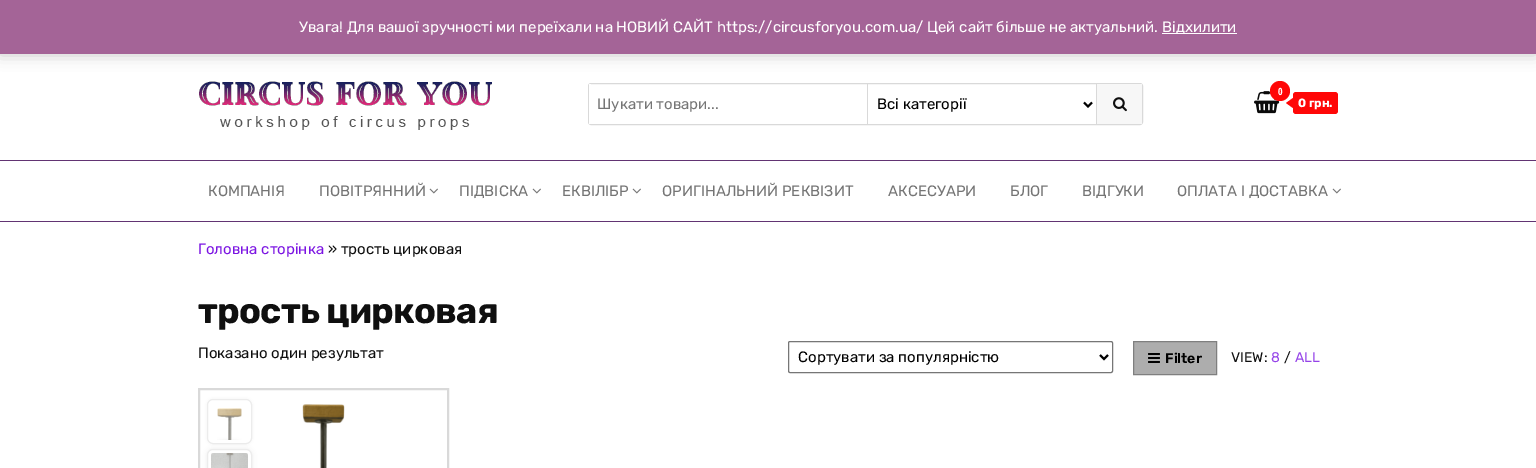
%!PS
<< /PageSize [1536 468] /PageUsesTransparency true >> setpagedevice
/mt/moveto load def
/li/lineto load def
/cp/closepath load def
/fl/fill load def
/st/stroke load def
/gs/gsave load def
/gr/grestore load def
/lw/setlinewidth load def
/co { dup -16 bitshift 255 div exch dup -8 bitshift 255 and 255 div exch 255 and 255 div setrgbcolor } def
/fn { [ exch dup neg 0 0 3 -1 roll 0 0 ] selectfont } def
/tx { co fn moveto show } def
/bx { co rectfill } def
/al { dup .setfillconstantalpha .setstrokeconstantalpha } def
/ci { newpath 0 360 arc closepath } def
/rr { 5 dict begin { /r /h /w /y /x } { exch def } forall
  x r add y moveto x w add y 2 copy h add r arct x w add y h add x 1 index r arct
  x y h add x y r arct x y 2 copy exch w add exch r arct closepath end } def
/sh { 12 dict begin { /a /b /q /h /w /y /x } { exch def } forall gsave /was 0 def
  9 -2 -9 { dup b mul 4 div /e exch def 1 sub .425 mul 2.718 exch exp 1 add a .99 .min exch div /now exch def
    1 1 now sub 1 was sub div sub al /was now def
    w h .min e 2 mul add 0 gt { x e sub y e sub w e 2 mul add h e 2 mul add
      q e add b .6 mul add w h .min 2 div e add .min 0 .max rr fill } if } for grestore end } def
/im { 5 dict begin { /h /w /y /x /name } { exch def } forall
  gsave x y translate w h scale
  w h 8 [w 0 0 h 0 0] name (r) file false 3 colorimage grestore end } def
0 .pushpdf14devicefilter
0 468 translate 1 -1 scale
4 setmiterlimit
0 0 1536 468 16#FFFFFF bx
16#000000 co
0 1 1536 54 0 7.5 .2 sh
0 0 1536 54 16#A46497 bx
1162 33 75 1 16#FFFFFF bx
(media/1.raw) 199 81 293 49 im
16#D9D9D9 co
588.5 83.5 554 41 2.5 rr st
589 84 2 40 16#FFFFFF bx
867 84 1 40 16#D9D9D9 bx
16#000000 co
2 lw
1084 102.5 mt 1088 106.5 li 1092 102.5 li st
1097 84 45 40 16#F7F7F7 bx
1096 84 1 40 16#D9D9D9 bx
(media/2.raw) 1113 97 14 15 im
(media/3.raw) 1254 91 26 23 im
16#FF0707 co
1280 91 10 ci fl
1293 92 45 22 3 rr fl
1293 98 mt 1293 108 li 1286 103 li cp fl
0 160 1536 1 16#623473 bx
0 221 1536 1 16#623473 bx
(media/4.raw) 429 188 9 6 im
(media/4.raw) 532 188 9 6 im
(media/4.raw) 632 188 9 6 im
(media/4.raw) 1332 188 9 6 im
16#767676 co
1 lw
788.5 341.5 324 31 1.5 rr st
16#000000 co
2 lw
1100 355 mt 1104 359 li 1108 355 li st
16#ADADAD co
1133.5 341.5 mt 1216.5 341.5 li 1216.5 374.5 li 1133.5 374.5 li cp gs fl gr
16#7F7F7F co
1 lw
st
(media/5.raw) 1148 353 12 10 im
16#D9D9D9 co
198.5 388.5 250 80 rectstroke
199.5 389.5 248 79 rectstroke
(media/6.raw) 302 404 43 64 im
16#808080 co
207 399 45 45 6 2.5 .14 sh
16#FFFFFF co
207.5 399.5 44 44 5.5 rr gs fl gr
16#ECECEC co
st
(media/7.raw) 217 408 25 32 im
16#000000 co
207 449 45 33 6 2.5 .07 sh
16#FFFFFF co
207.5 449.5 44 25 5.5 rr gs fl gr
16#ECECEC co
st
(media/8.raw) 211 453 37 15 im
(Увага! Для вашої зручності ми переїхали на НОВИЙ САЙТ https://circusforyou.com.ua/ Цей сайт більше не актуальний.) 299 32 /Rubik-Regular 15 16#FFFFFF tx
(Відхилити) 1162 32 /Rubik-Regular 15 16#FFFFFF tx
(Шукати товари...) 597 109 /Rubik-Regular 15 16#757575 tx
(Всі категорії) 877 109 /Rubik-Regular 15 16#000000 tx
(0) 1278 95 /OpenSansCondensed-Bold 10 16#FFFFFF tx
(0 грн.) 1298 107 /Rubik-Bold 12 16#FFFFFF tx
(КОМПАНІЯ) 208 196 /Rubik-Regular 15 16#757575 tx
(ПОВІТРЯННИЙ) 319 196 /Rubik-Regular 15 16#757575 tx
(ПІДВІСКА) 459 196 /Rubik-Regular 15 16#757575 tx
(ЕКВІЛІБР) 562 196 /Rubik-Regular 15 16#757575 tx
(ОРИГІНАЛЬНИЙ РЕКВІЗИТ) 662 196 /Rubik-Regular 15 16#757575 tx
(АКСЕСУАРИ) 888 196 /Rubik-Regular 15 16#757575 tx
(БЛОГ) 1010 196 /Rubik-Regular 15 16#757575 tx
(ВІДГУКИ) 1082 196 /Rubik-Regular 15 16#757575 tx
(ОПЛАТА І ДОСТАВКА) 1177 196 /Rubik-Regular 15 16#757575 tx
(Головна сторінка) 198 254 /Rubik-Regular 15 16#7B14E2 tx
(» трость цирковая) 328 254 /Rubik-Regular 15 16#0F0F0F tx
/Rubik-Bold 36 fn
198 323 mt -.75 0 (трость цирковая) ashow
(Показано один результат) 198 358 /Rubik-Regular 15 16#0F0F0F tx
(Сортувати за популярністю) 798 362 /Rubik-Regular 15 16#000000 tx
(Filter) 1165 363 /Rubik-SemiBold 14 16#000000 tx
(VIEW:) 1231 362 /Rubik-Regular 14 16#0F0F0F tx
(8) 1271 362 /Rubik-Regular 14 16#9543E8 tx
(/) 1284 362 /Rubik-Regular 14 16#0F0F0F tx
(ALL) 1295 362 /Rubik-Regular 14 16#9543E8 tx
.poppdf14devicefilter showpage
